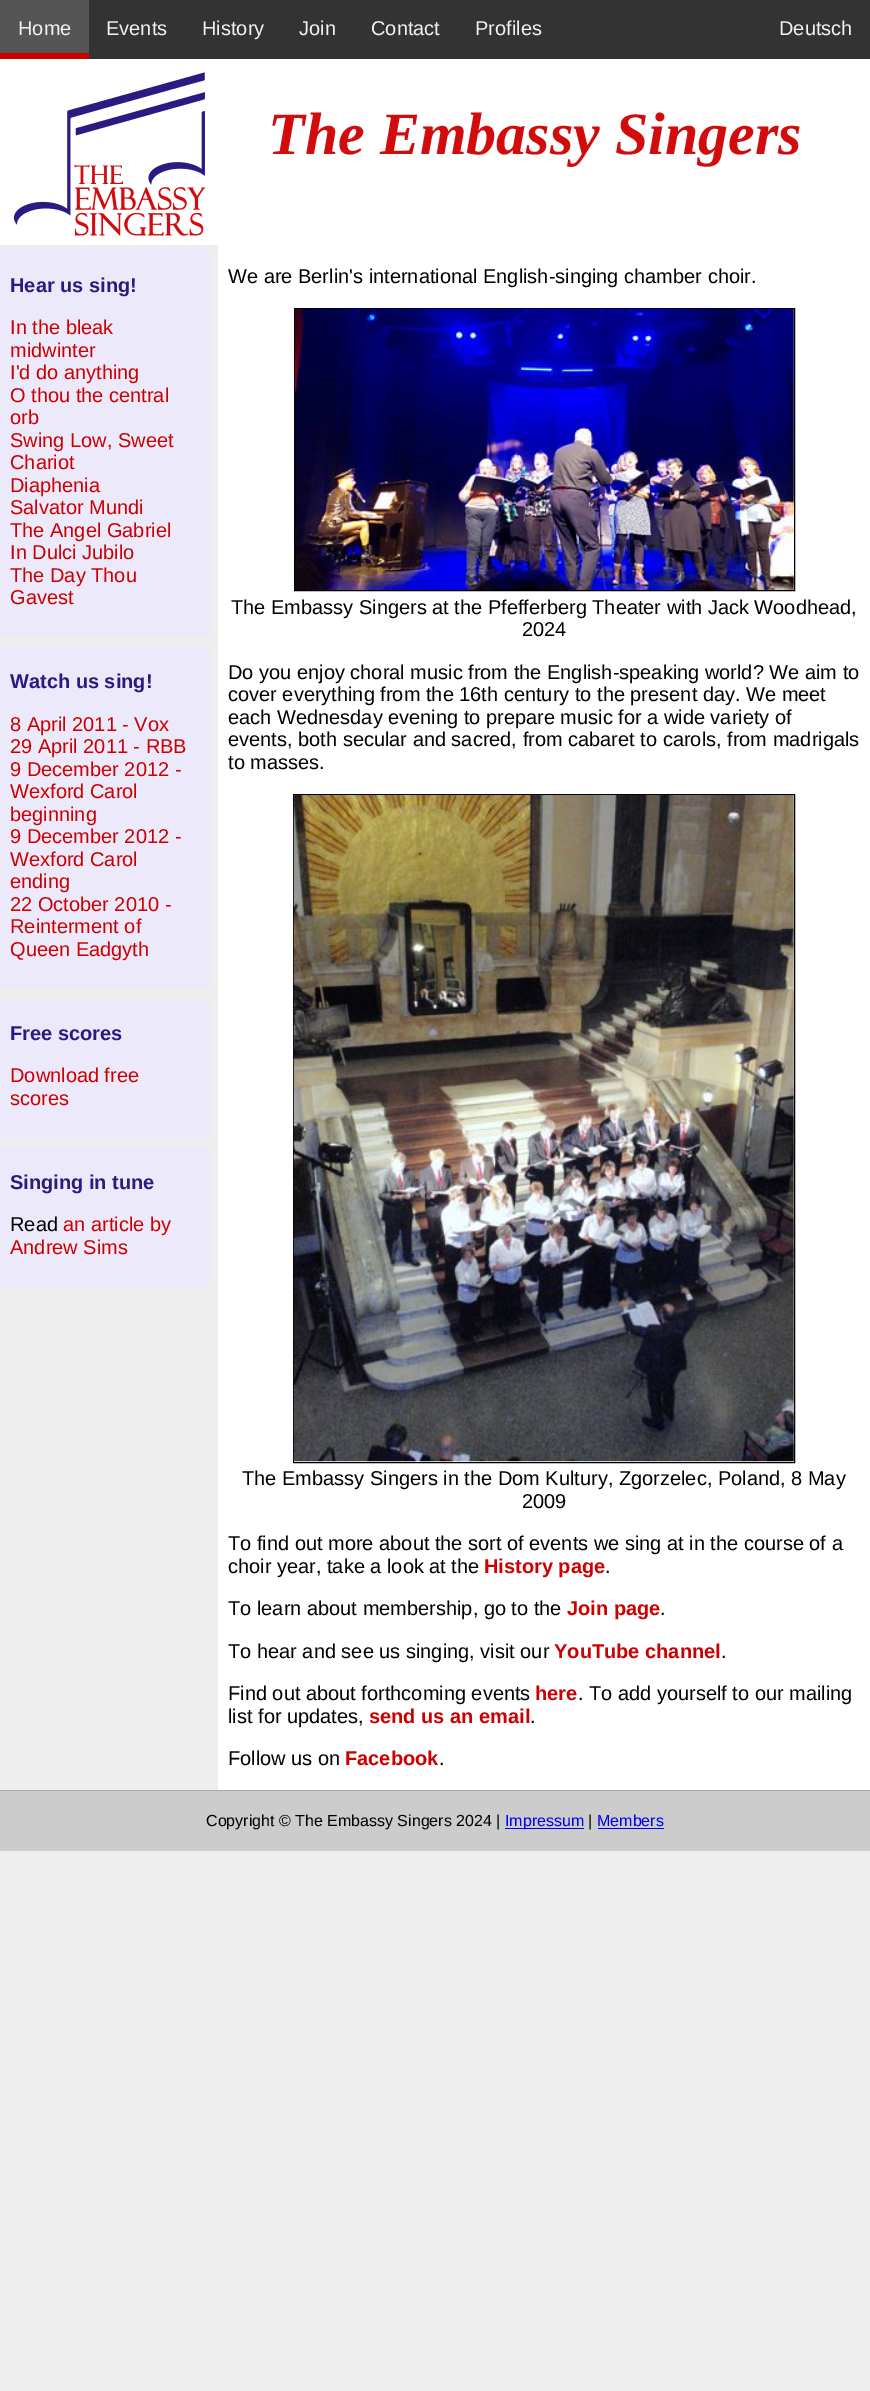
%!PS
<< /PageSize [870 2391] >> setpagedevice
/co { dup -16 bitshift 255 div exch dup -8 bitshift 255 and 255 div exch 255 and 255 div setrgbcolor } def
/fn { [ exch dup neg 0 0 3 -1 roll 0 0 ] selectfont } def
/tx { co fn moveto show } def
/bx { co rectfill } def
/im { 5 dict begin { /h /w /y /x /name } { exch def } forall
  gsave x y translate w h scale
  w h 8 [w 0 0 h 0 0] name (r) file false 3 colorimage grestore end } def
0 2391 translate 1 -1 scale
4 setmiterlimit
0 0 870 2391 16#EEEEEE bx
89 0 781 59 16#333333 bx
0 0 89 53 16#555555 bx
0 53 89 6 16#CC0000 bx
0 59 870 186 16#FFFFFF bx
(media/1.raw) 13 72 193 164 im
0 250 210 386 16#ECE9FB bx
218 245 652 1545 16#FFFFFF bx
16#000000 co
294.5 308.5 500 282 rectstroke
(media/2.raw) 295 308 499 282 im
293.5 794.5 501 668 rectstroke
(media/3.raw) 293 795 501 667 im
0 646 210 343 16#ECE9FB bx
0 999 210 139 16#ECE9FB bx
0 1148 210 138 16#ECE9FB bx
0 1791 870 60 16#CCCCCC bx
0 1790 870 1 16#AAAAAA bx
505 1828 79 1 16#0000EE bx
598 1828 66 1 16#0000EE bx
(Home) 18 35 /LiberationSans-Regular 20 16#F2F2F2 tx
(Events) 106 35 /LiberationSans-Regular 20 16#F2F2F2 tx
(History) 202 35 /LiberationSans-Regular 20 16#F2F2F2 tx
(Join) 299 35 /LiberationSans-Regular 20 16#F2F2F2 tx
(Contact) 371 35 /LiberationSans-Regular 20 16#F2F2F2 tx
(Profiles) 475 35 /LiberationSans-Regular 20 16#F2F2F2 tx
(Deutsch) 779 35 /LiberationSans-Regular 20 16#F2F2F2 tx
(The Embassy Singers) 268 154 /LiberationSerif-BoldItalic 60 16#D20C0C tx
(Hear us sing!) 10 292 /LiberationSans-Bold 20 16#2A1A82 tx
(In the bleak) 10 334 /LiberationSans-Regular 20 16#CC0000 tx
(midwinter) 10 357 /LiberationSans-Regular 20 16#CC0000 tx
(I'd do anything) 10 379 /LiberationSans-Regular 20 16#CC0000 tx
(O thou the central) 10 402 /LiberationSans-Regular 20 16#CC0000 tx
(orb) 10 424 /LiberationSans-Regular 20 16#CC0000 tx
(Swing Low, Sweet) 10 447 /LiberationSans-Regular 20 16#CC0000 tx
(Chariot) 10 469 /LiberationSans-Regular 20 16#CC0000 tx
(Diaphenia) 10 492 /LiberationSans-Regular 20 16#CC0000 tx
(Salvator Mundi) 10 514 /LiberationSans-Regular 20 16#CC0000 tx
(The Angel Gabriel) 10 537 /LiberationSans-Regular 20 16#CC0000 tx
(In Dulci Jubilo) 10 559 /LiberationSans-Regular 20 16#CC0000 tx
(The Day Thou) 10 582 /LiberationSans-Regular 20 16#CC0000 tx
(Gavest) 10 604 /LiberationSans-Regular 20 16#CC0000 tx
(We are Berlin's international English-singing chamber choir.) 228 283 /LiberationSans-Regular 20 16#000000 tx
(The Embassy Singers at the Pfefferberg Theater with Jack Woodhead,) 231 614 /LiberationSans-Regular 20 16#000000 tx
(2024) 522 636 /LiberationSans-Regular 20 16#000000 tx
(Do you enjoy choral music from the English-speaking world? We aim to) 228 679 /LiberationSans-Regular 20 16#000000 tx
(cover everything from the 16th century to the present day. We meet) 228 701 /LiberationSans-Regular 20 16#000000 tx
(each Wednesday evening to prepare music for a wide variety of) 228 724 /LiberationSans-Regular 20 16#000000 tx
(events, both secular and sacred, from cabaret to carols, from madrigals) 228 746 /LiberationSans-Regular 20 16#000000 tx
(to masses.) 228 769 /LiberationSans-Regular 20 16#000000 tx
(The Embassy Singers in the Dom Kultury, Zgorzelec, Poland, 8 May) 242 1485 /LiberationSans-Regular 20 16#000000 tx
(2009) 522 1508 /LiberationSans-Regular 20 16#000000 tx
(To find out more about the sort of events we sing at in the course of a) 228 1550 /LiberationSans-Regular 20 16#000000 tx
(choir year, take a look at the) 228 1573 /LiberationSans-Regular 20 16#000000 tx
(History page) 484 1573 /LiberationSans-Bold 20 16#CC0000 tx
(.) 605 1573 /LiberationSans-Regular 20 16#000000 tx
(To learn about membership, go to the) 228 1615 /LiberationSans-Regular 20 16#000000 tx
(Join page) 567 1615 /LiberationSans-Bold 20 16#CC0000 tx
(.) 660 1615 /LiberationSans-Regular 20 16#000000 tx
(To hear and see us singing, visit our) 228 1658 /LiberationSans-Regular 20 16#000000 tx
(YouTube channel) 554 1658 /LiberationSans-Bold 20 16#CC0000 tx
(.) 721 1658 /LiberationSans-Regular 20 16#000000 tx
(Find out about forthcoming events) 228 1700 /LiberationSans-Regular 20 16#000000 tx
(here) 535 1700 /LiberationSans-Bold 20 16#CC0000 tx
(. To add yourself to our mailing) 578 1700 /LiberationSans-Regular 20 16#000000 tx
(list for updates,) 228 1723 /LiberationSans-Regular 20 16#000000 tx
(send us an email) 369 1723 /LiberationSans-Bold 20 16#CC0000 tx
(.) 530 1723 /LiberationSans-Regular 20 16#000000 tx
(Follow us on) 228 1765 /LiberationSans-Regular 20 16#000000 tx
(Facebook) 345 1765 /LiberationSans-Bold 20 16#CC0000 tx
(.) 439 1765 /LiberationSans-Regular 20 16#000000 tx
(Watch us sing!) 10 688 /LiberationSans-Bold 20 16#2A1A82 tx
(8 April 2011 - Vox) 10 731 /LiberationSans-Regular 20 16#CC0000 tx
(29 April 2011 - RBB) 10 753 /LiberationSans-Regular 20 16#CC0000 tx
(9 December 2012 -) 10 776 /LiberationSans-Regular 20 16#CC0000 tx
(Wexford Carol) 10 798 /LiberationSans-Regular 20 16#CC0000 tx
(beginning) 10 821 /LiberationSans-Regular 20 16#CC0000 tx
(9 December 2012 -) 10 843 /LiberationSans-Regular 20 16#CC0000 tx
(Wexford Carol) 10 866 /LiberationSans-Regular 20 16#CC0000 tx
(ending) 10 888 /LiberationSans-Regular 20 16#CC0000 tx
(22 October 2010 -) 10 911 /LiberationSans-Regular 20 16#CC0000 tx
(Reinterment of) 10 933 /LiberationSans-Regular 20 16#CC0000 tx
(Queen Eadgyth) 10 956 /LiberationSans-Regular 20 16#CC0000 tx
(Free scores) 10 1040 /LiberationSans-Bold 20 16#2A1A82 tx
(Download free) 10 1082 /LiberationSans-Regular 20 16#CC0000 tx
(scores) 10 1105 /LiberationSans-Regular 20 16#CC0000 tx
(Singing in tune) 10 1189 /LiberationSans-Bold 20 16#2A1A82 tx
(Read) 10 1231 /LiberationSans-Regular 20 16#000000 tx
(an article by) 63 1231 /LiberationSans-Regular 20 16#CC0000 tx
(Andrew Sims) 10 1254 /LiberationSans-Regular 20 16#CC0000 tx
(Copyright © The Embassy Singers 2024 |) 206 1826 /LiberationSans-Regular 16 16#000000 tx
(Impressum) 505 1826 /LiberationSans-Regular 16 16#0000EE tx
(|) 588 1826 /LiberationSans-Regular 16 16#000000 tx
(Members) 597 1826 /LiberationSans-Regular 16 16#0000EE tx
showpage
